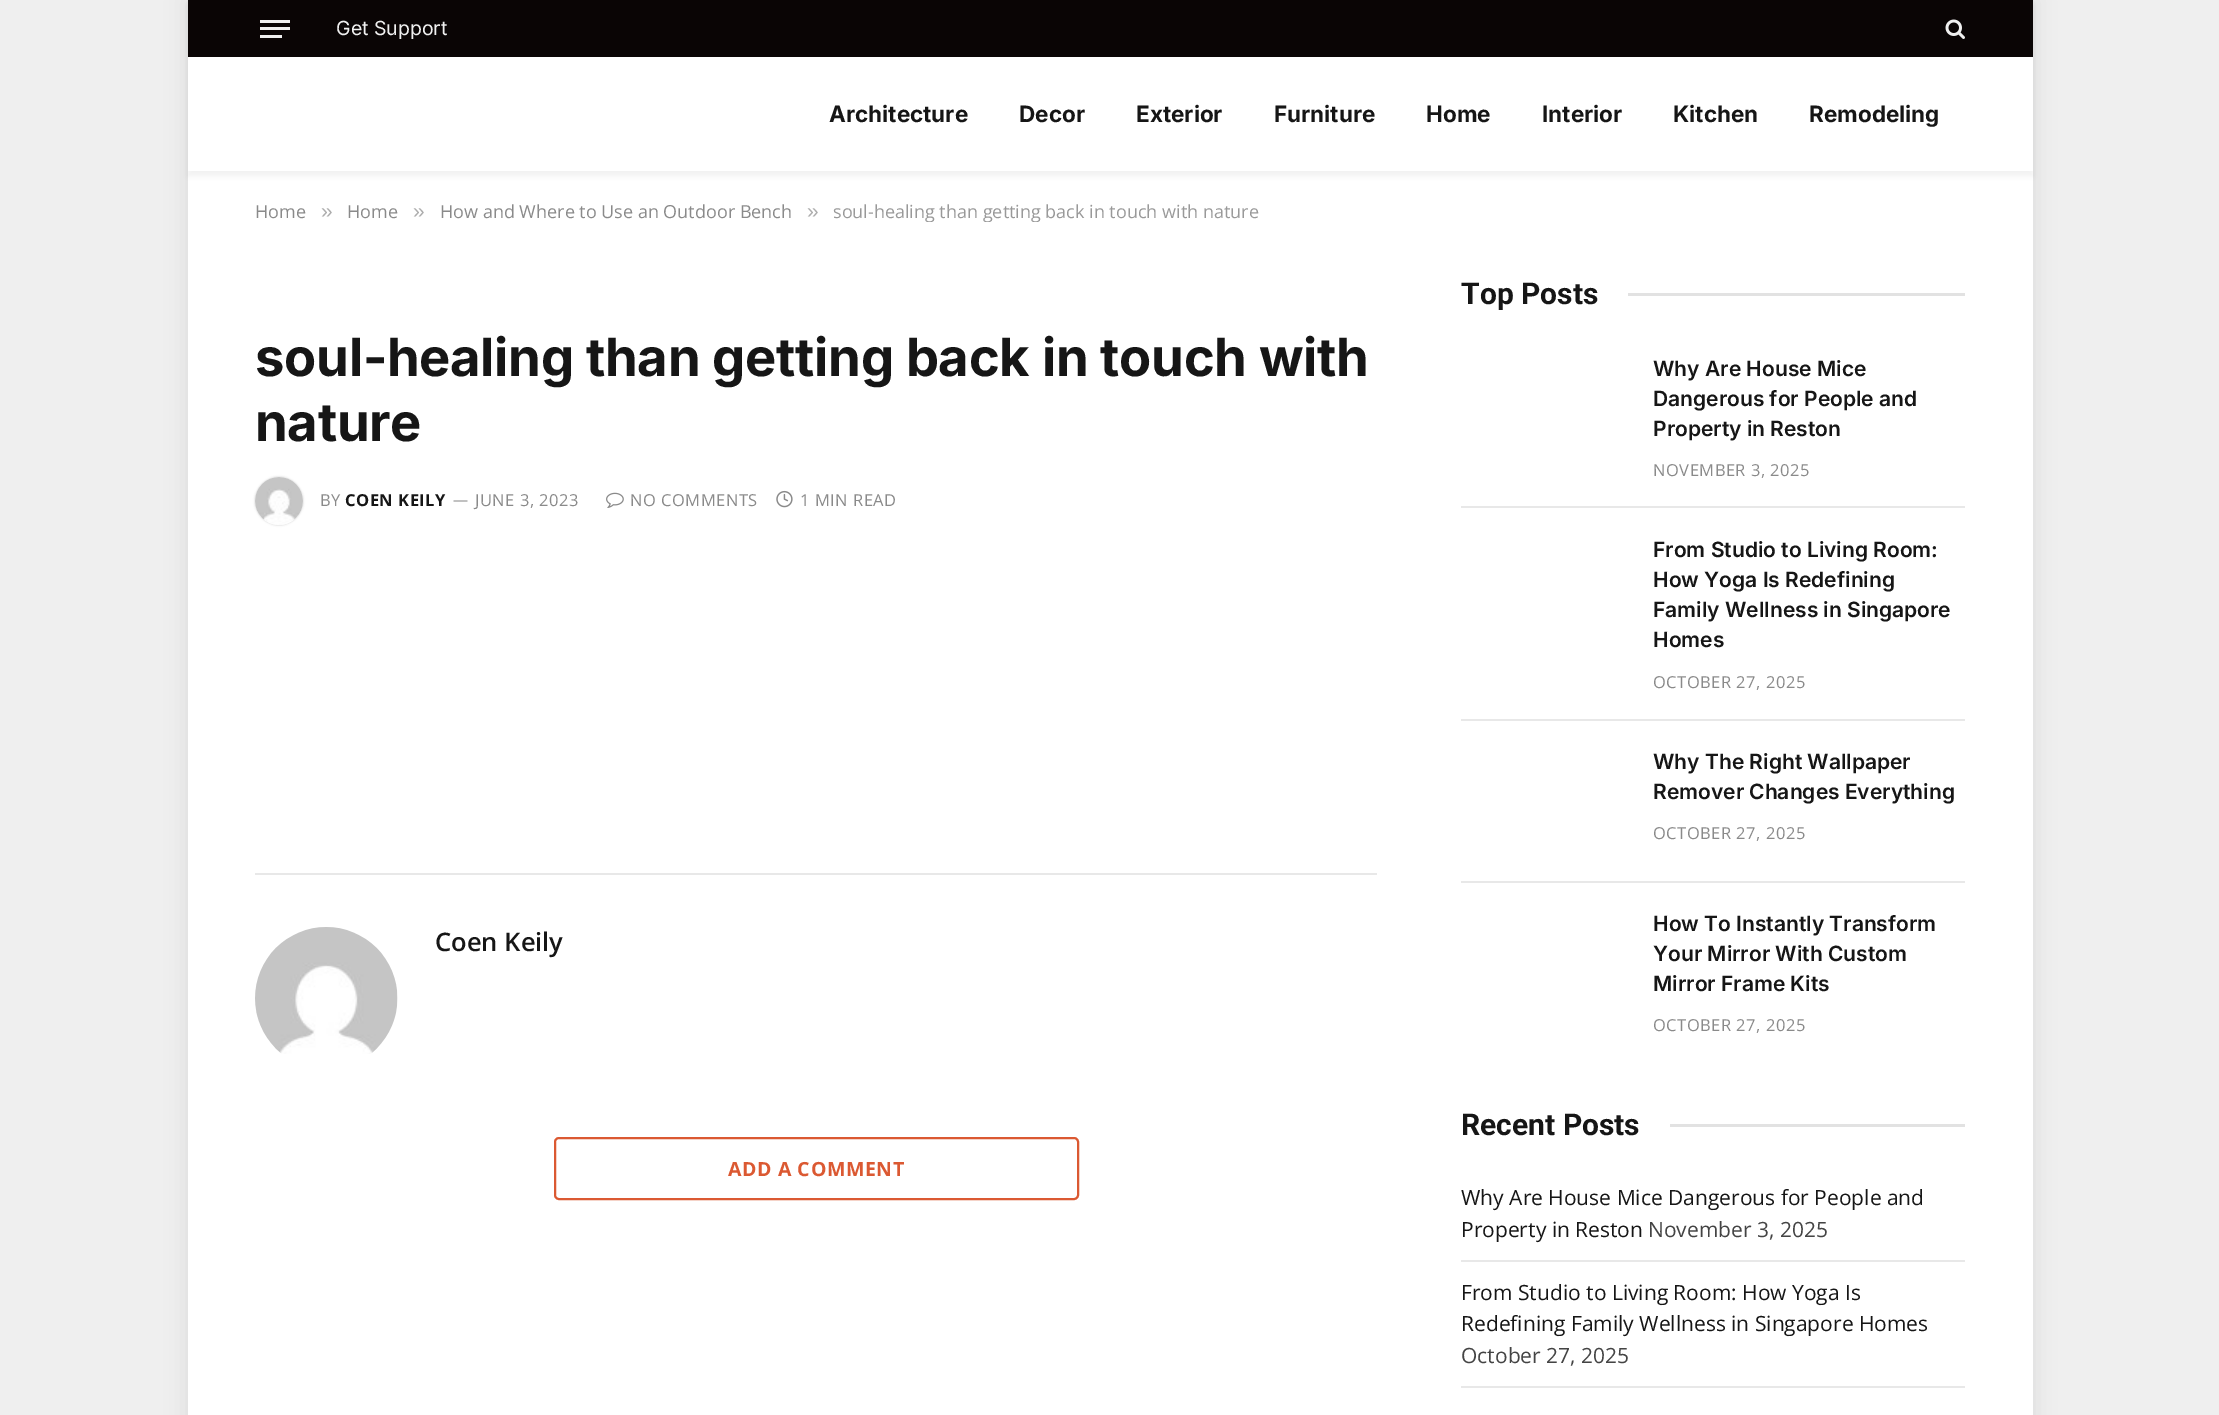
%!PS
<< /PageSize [2219 1415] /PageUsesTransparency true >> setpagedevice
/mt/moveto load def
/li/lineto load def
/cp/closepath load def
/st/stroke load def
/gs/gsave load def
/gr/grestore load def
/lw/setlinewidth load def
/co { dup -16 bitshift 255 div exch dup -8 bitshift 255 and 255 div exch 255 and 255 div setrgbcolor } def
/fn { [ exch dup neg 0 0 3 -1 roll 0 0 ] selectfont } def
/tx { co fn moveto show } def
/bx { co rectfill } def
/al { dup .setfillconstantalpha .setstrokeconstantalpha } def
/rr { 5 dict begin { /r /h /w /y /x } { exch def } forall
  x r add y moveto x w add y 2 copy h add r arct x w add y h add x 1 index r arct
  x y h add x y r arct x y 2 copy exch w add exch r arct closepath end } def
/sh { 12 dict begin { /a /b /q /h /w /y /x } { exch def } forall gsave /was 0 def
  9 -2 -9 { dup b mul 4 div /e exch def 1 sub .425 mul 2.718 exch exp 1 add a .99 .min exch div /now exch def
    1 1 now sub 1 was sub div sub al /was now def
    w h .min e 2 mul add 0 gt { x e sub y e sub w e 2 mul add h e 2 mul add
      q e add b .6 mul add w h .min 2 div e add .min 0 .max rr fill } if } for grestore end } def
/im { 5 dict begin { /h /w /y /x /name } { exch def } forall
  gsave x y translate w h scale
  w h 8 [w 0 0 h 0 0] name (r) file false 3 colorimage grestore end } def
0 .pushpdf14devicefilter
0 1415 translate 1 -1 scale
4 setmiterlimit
0 0 2219 1415 16#EFEFEF bx
16#000000 co
188 0 1845 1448 0 11 .08 sh
188 57 1845 1358 16#FFFFFF bx
gs
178 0 mt 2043 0 li 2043 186 li 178 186 li cp 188 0 mt 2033 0 li 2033 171 li 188 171 li cp eoclip newpath
16#000000 co
188 5 1845 171 0 3 .05 sh
gr
188 0 1845 57 16#0A0505 bx
260 35 22 3 16#F0F0F0 bx
260 20 30 3 16#F0F0F0 bx
260 27 30 3 16#F0F0F0 bx
(media/1.raw) 1945 19 20 20 im
16#000000 co
255 477 48 48 24 1 .2 sh
(media/2.raw) 255 477 48 48 im
(media/3.raw) 606 492 18 16 im
(media/4.raw) 776 490 17 18 im
255 873 1122 2 16#E8E8E8 bx
(media/5.raw) 255 927 143 127 im
16#DB5932 co
2 lw
555 1138 523 61 4 rr st
1628 293 337 3 16#E2E2E2 bx
1461 506 504 2 16#E8E8E8 bx
1461 719 504 2 16#E8E8E8 bx
1461 881 504 2 16#E8E8E8 bx
1670 1124 295 3 16#E2E2E2 bx
1461 1260 504 2 16#E8E8E8 bx
1461 1386 504 2 16#E8E8E8 bx
(Get Support) 336 35 /Inter-Regular 19.5 16#F0F0F0 tx
(Architecture) 829 122 /Inter-Bold 22.5 16#161616 tx
(Decor) 1019 122 /Inter-Bold 22.5 16#161616 tx
(Exterior) 1136 122 /Inter-Bold 22.5 16#161616 tx
(Furniture) 1274 122 /Inter-Bold 22.5 16#161616 tx
(Home) 1426 122 /Inter-Bold 22.5 16#161616 tx
(Interior) 1542 122 /Inter-Bold 22.5 16#161616 tx
(Kitchen) 1673 122 /Inter-Bold 22.5 16#161616 tx
(Remodeling) 1809 122 /Inter-Bold 22.5 16#161616 tx
(Home) 255 218 /OpenSans-Regular 18 16#8A8A8A tx
(») 321 218 /LiberationSans-Regular 21 16#ADADAD tx
(Home) 347 218 /OpenSans-Regular 18 16#8A8A8A tx
(») 413 218 /LiberationSans-Regular 21 16#ADADAD tx
(How and Where to Use an Outdoor Bench) 440 218 /OpenSans-Regular 18 16#8A8A8A tx
(») 807 218 /LiberationSans-Regular 21 16#ADADAD tx
gs
203 201 1815 21 rectclip
(soul-healing than getting back in touch with nature) 833 218 /OpenSans-Regular 18 16#999999 tx
gr
/Inter-Bold 52.5 fn
16#161616 co
255 376 mt -.25 0 (soul-healing than getting back in touch with) ashow
255 441 mt -.25 0 (nature) ashow
/OpenSans-Regular 16.5 fn
16#8A8A8A co
320 506 mt .5 0 (BY) ashow
/OpenSans-Bold 16.5 fn
16#161616 co
345 506 mt .5 0 (COEN KEILY) ashow
(—) 453 505 /OpenSans-Regular 15 16#8A8A8A tx
/OpenSans-Regular 16.5 fn
475 506 mt .5 0 (JUNE 3, 2023) ashow
630 506 mt .5 0 (NO COMMENTS) ashow
800 506 mt .5 0 (1 MIN READ) ashow
(Coen Keily) 435 951 /OpenSans-SemiBold 25.5 16#161616 tx
/OpenSans-Bold 19.5 fn
16#DB5932 co
728 1176 mt .6 0 (ADD A COMMENT) ashow
(Top Posts) 1461 304 /Roboto-Bold 30 16#161616 tx
(Why Are House Mice) 1653 376 /Inter-SemiBold 21 16#161616 tx
(Dangerous for People and) 1653 406 /Inter-SemiBold 21 16#161616 tx
(Property in Reston) 1653 436 /Inter-SemiBold 21 16#161616 tx
/OpenSans-Regular 16.5 fn
16#8A8A8A co
1653 476 mt .5 0 (NOVEMBER 3, 2025) ashow
(From Studio to Living Room:) 1653 557 /Inter-SemiBold 21 16#161616 tx
(How Yoga Is Redefining) 1653 587 /Inter-SemiBold 21 16#161616 tx
(Family Wellness in Singapore) 1653 617 /Inter-SemiBold 21 16#161616 tx
(Homes) 1653 647 /Inter-SemiBold 21 16#161616 tx
/OpenSans-Regular 16.5 fn
16#8A8A8A co
1653 688 mt .5 0 (OCTOBER 27, 2025) ashow
(Why The Right Wallpaper) 1653 769 /Inter-SemiBold 21 16#161616 tx
(Remover Changes Everything) 1653 799 /Inter-SemiBold 21 16#161616 tx
/OpenSans-Regular 16.5 fn
16#8A8A8A co
1653 839 mt .5 0 (OCTOBER 27, 2025) ashow
(How To Instantly Transform) 1653 931 /Inter-SemiBold 21 16#161616 tx
(Your Mirror With Custom) 1653 961 /Inter-SemiBold 21 16#161616 tx
(Mirror Frame Kits) 1653 991 /Inter-SemiBold 21 16#161616 tx
/OpenSans-Regular 16.5 fn
16#8A8A8A co
1653 1031 mt .5 0 (OCTOBER 27, 2025) ashow
(Recent Posts) 1461 1135 /Roboto-Bold 30 16#161616 tx
(Why Are House Mice Dangerous for People and) 1461 1205 /OpenSans-Regular 21 16#161616 tx
(Property in Reston) 1461 1237 /OpenSans-Regular 21 16#161616 tx
(November 3, 2025) 1648 1237 /OpenSans-Regular 21 16#444444 tx
(From Studio to Living Room: How Yoga Is) 1461 1300 /OpenSans-Regular 21 16#161616 tx
(Redefining Family Wellness in Singapore Homes) 1461 1331 /OpenSans-Regular 21 16#161616 tx
(October 27, 2025) 1461 1363 /OpenSans-Regular 21 16#444444 tx
.poppdf14devicefilter showpage
